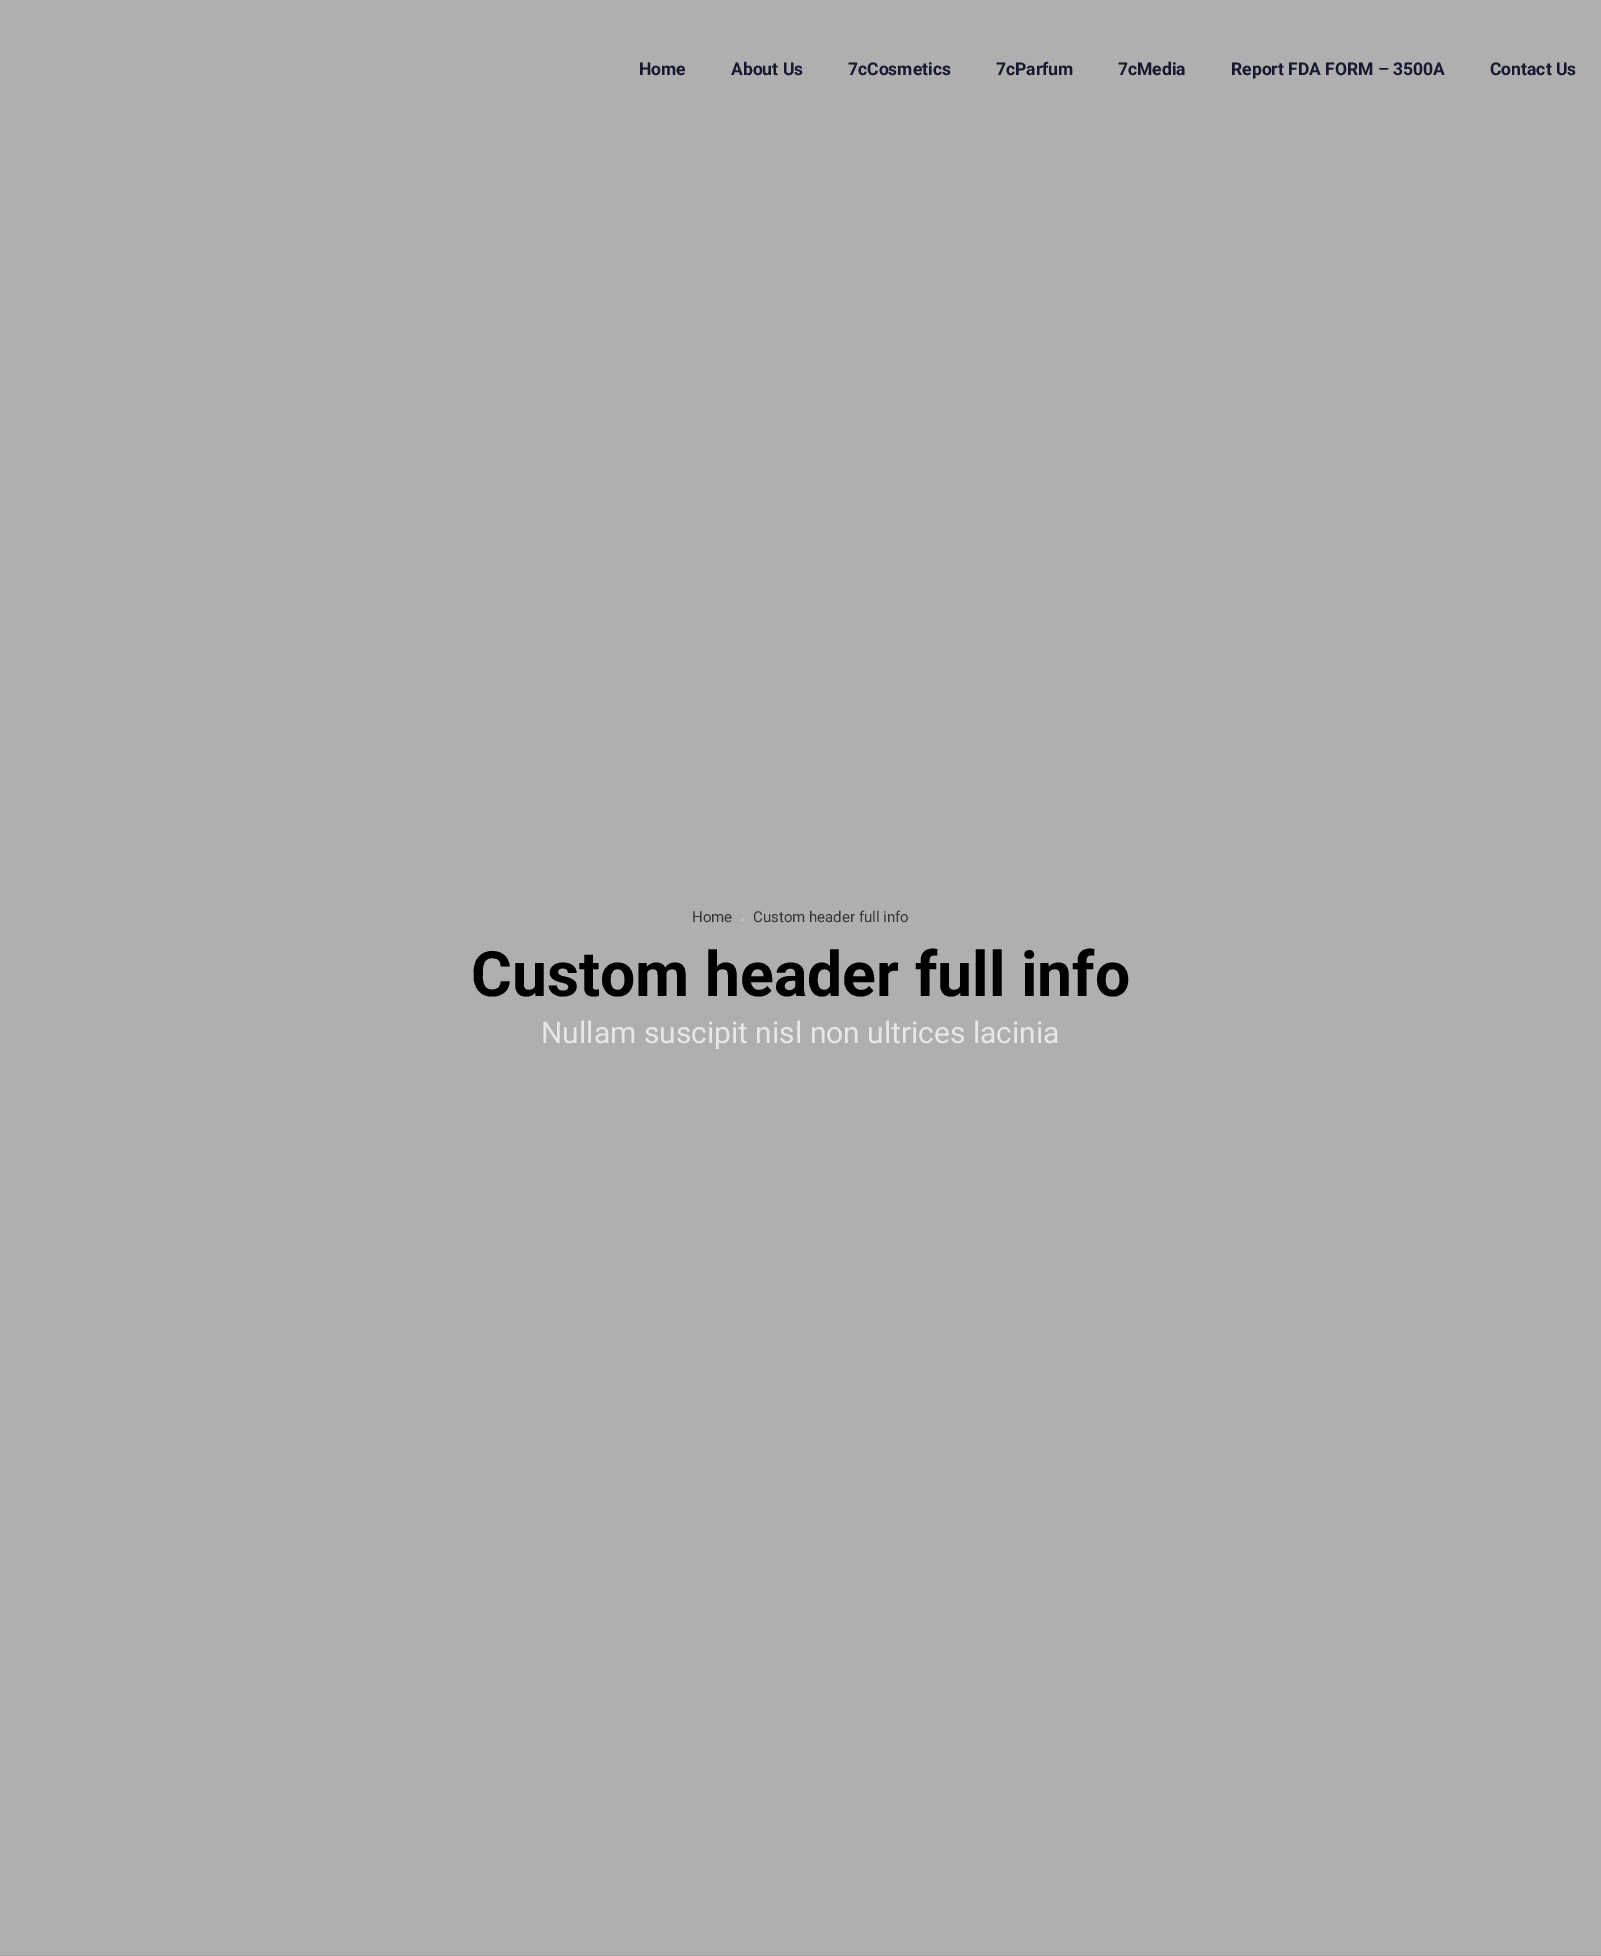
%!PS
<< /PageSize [1601 1956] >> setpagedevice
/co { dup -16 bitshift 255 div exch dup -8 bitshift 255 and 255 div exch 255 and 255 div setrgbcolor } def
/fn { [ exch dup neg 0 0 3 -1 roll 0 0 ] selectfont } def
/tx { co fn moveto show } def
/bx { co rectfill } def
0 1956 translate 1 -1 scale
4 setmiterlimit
0 0 1601 1956 16#AFAFAF bx
741 918 3 3 16#BFBFBF bx
0 1955 1601 1 16#A0A0A0 bx
(Home) 639 75 /Roboto-Bold 17.5 16#171930 tx
(About Us) 731 75 /Roboto-Bold 17.5 16#171930 tx
(7cCosmetics) 848 75 /Roboto-Bold 17.5 16#171930 tx
(7cParfum) 996 75 /Roboto-Bold 17.5 16#171930 tx
(7cMedia) 1118 75 /Roboto-Bold 17.5 16#171930 tx
(Report FDA FORM – 3500A) 1231 75 /Roboto-Bold 17.5 16#171930 tx
(Contact Us) 1490 75 /Roboto-Bold 17.5 16#171930 tx
(Home) 692 922 /Roboto-Regular 15 16#353535 tx
(Custom header full info) 753 922 /Roboto-Regular 15 16#353535 tx
(Custom header full info) 471 996 /Roboto-Bold 62.5 16#000000 tx
(Nullam suscipit nisl non ultrices lacinia) 541 1043 /Roboto-Regular 30 16#E7E7E7 tx
showpage
